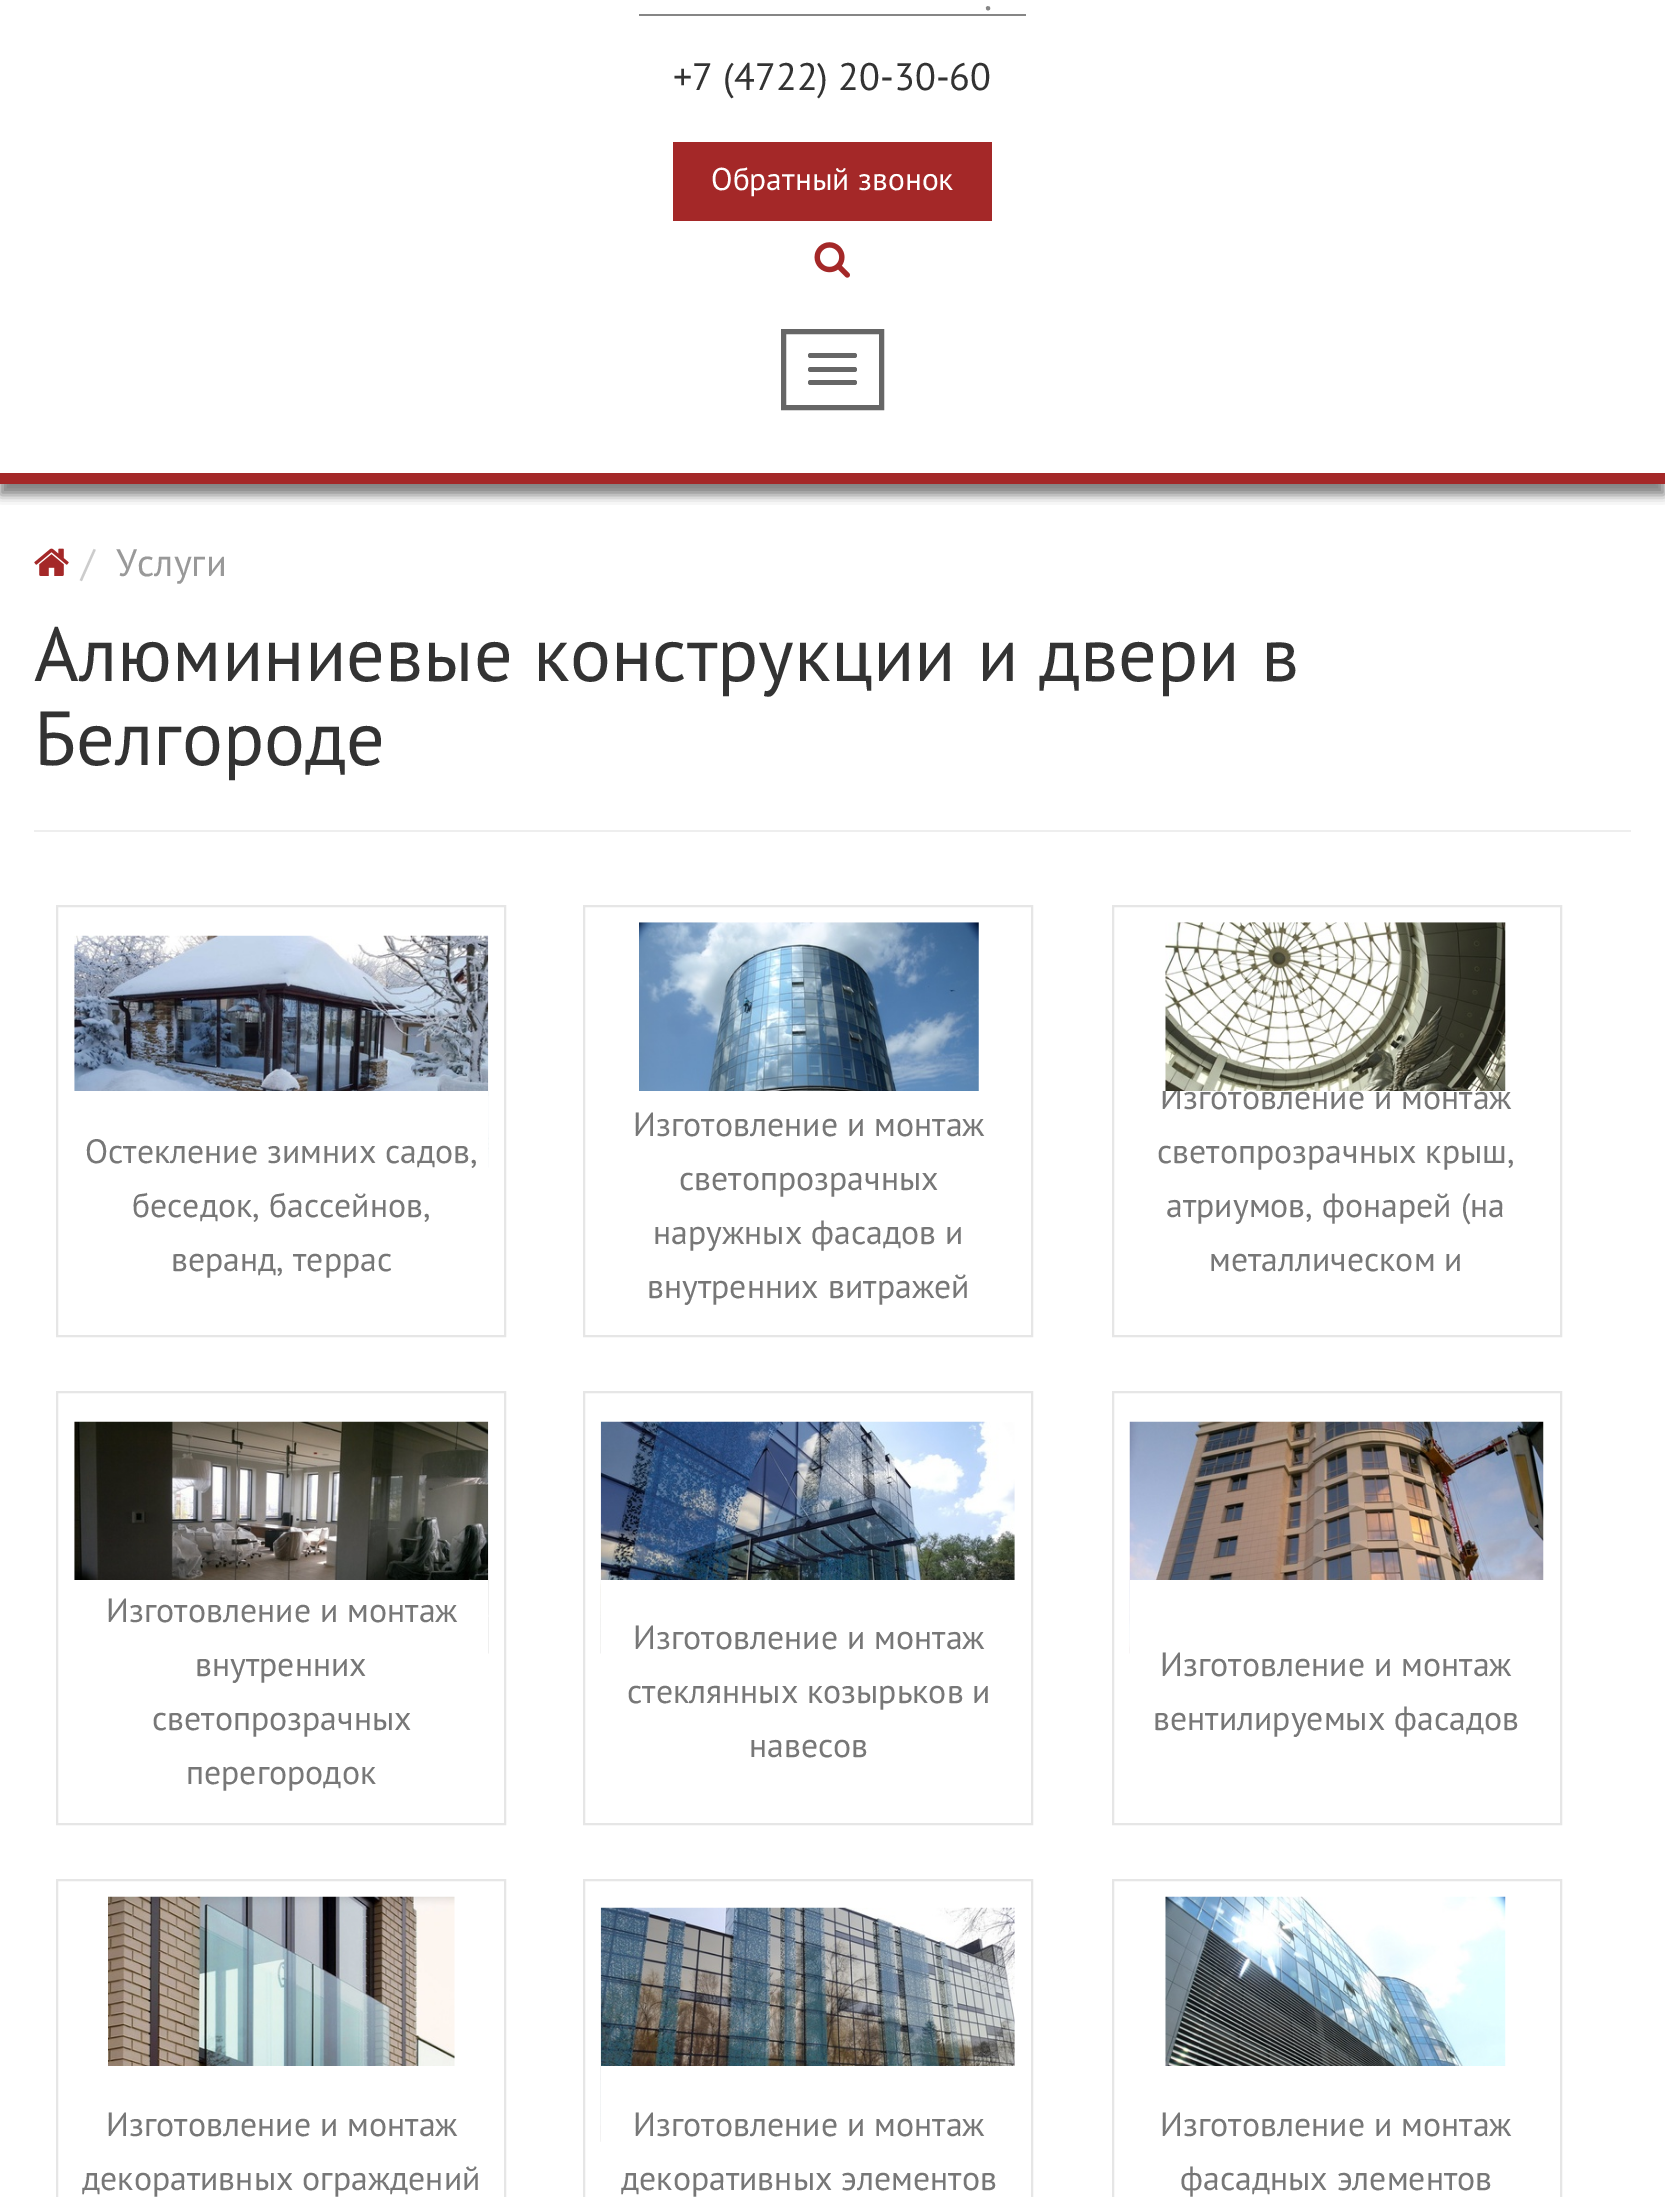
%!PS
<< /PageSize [1665 2197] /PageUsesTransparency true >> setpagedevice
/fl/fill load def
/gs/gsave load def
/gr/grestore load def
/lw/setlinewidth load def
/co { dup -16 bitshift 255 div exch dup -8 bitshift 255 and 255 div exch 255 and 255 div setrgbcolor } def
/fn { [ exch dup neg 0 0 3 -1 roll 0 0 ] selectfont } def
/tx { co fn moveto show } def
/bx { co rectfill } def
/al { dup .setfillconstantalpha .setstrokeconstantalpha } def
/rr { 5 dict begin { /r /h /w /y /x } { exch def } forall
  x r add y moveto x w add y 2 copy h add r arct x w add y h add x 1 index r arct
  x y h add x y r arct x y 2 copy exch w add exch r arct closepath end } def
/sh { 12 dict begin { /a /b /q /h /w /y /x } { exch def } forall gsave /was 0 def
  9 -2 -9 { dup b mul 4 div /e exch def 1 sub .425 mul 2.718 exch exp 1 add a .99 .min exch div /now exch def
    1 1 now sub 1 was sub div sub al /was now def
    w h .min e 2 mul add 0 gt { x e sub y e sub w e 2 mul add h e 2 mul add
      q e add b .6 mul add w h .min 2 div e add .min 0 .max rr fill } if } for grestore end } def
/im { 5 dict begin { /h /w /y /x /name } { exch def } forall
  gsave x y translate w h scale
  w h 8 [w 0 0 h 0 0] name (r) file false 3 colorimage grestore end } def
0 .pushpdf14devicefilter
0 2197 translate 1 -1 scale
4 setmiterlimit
0 0 1665 2197 16#FFFFFF bx
gs
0 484 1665 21 rectclip
16#000000 co
0 -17 1665 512 0 5.5 .5 sh
gr
0 473 1665 11 16#A42828 bx
639 14 387 2 16#868686 bx
673 142 319 79 16#A42828 bx
(media/1.raw) 814 242 36 36 im
16#666666 co
5 lw
783.5 331.5 98 76 rectstroke
808 353 49 5 2.5 rr fl
808 367 49 5 2.5 rr fl
808 380 49 5 2.5 rr fl
(media/2.raw) 34 548 35 28 im
34 830 1597 2 16#EEEEEE bx
16#E6E6E6 co
2 lw
57 906 448 430 rectstroke
(media/3.raw) 74 935 415 233 im
74 1091 414 77 16#FFFFFF bx
16#E6E6E6 co
584 906 448 430 rectstroke
(media/4.raw) 639 922 340 169 im
1113 906 448 430 rectstroke
(media/5.raw) 1165 922 341 169 im
57 1392 448 432 rectstroke
(media/6.raw) 74 1421 415 233 im
74 1580 414 74 16#FFFFFF bx
16#E6E6E6 co
584 1392 448 432 rectstroke
(media/7.raw) 600 1421 415 233 im
601 1580 414 74 16#FFFFFF bx
16#E6E6E6 co
1113 1392 448 432 rectstroke
(media/8.raw) 1129 1421 415 233 im
1130 1580 414 74 16#FFFFFF bx
16#E6E6E6 co
57 1880 448 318 rectstroke
(media/9.raw) 108 1896 347 170 im
584 1880 448 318 rectstroke
(media/10.raw) 600 1907 415 235 im
601 2066 414 76 16#FFFFFF bx
16#E6E6E6 co
1113 1880 448 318 rectstroke
(media/11.raw) 1165 1896 341 170 im
(.) 984 10 /PTSans-Regular 38.25 16#868686 tx
(+7 \(4722\) 20-30-60) 673 90 /PTSans-Regular 38.25 16#333333 tx
(Обратный звонок) 711 190 /PTSans-Regular 31.5 16#FFFFFF tx
(/) 81 576 /PTSans-Regular 38.25 16#CCCCCC tx
(Услуги) 116 576 /PTSans-Regular 38.25 16#999999 tx
(Алюминиевые конструкции и двери в) 34 681 /PTSans-Regular 76.5 16#333333 tx
(Белгороде) 34 765 /PTSans-Regular 76.5 16#333333 tx
(Остекление зимних садов,) 85 1163 /PTSans-Regular 33.75 16#777777 tx
(беседок, бассейнов,) 132 1217 /PTSans-Regular 33.75 16#777777 tx
(веранд, террас) 171 1271 /PTSans-Regular 33.75 16#777777 tx
(Изготовление и монтаж) 633 1136 /PTSans-Regular 33.75 16#777777 tx
(светопрозрачных) 679 1190 /PTSans-Regular 33.75 16#777777 tx
(наружных фасадов и) 653 1244 /PTSans-Regular 33.75 16#777777 tx
(внутренних витражей) 647 1298 /PTSans-Regular 33.75 16#777777 tx
gs
1130 1091 414 214 rectclip
(Изготовление и монтаж) 1160 1109 /PTSans-Regular 33.75 16#777777 tx
gr
(светопрозрачных крыш,) 1157 1163 /PTSans-Regular 33.75 16#777777 tx
(атриумов, фонарей \(на) 1166 1217 /PTSans-Regular 33.75 16#777777 tx
(металлическом и) 1209 1271 /PTSans-Regular 33.75 16#777777 tx
(Изготовление и монтаж) 106 1622 /PTSans-Regular 33.75 16#777777 tx
(внутренних) 195 1676 /PTSans-Regular 33.75 16#777777 tx
(светопрозрачных) 152 1730 /PTSans-Regular 33.75 16#777777 tx
(перегородок) 186 1784 /PTSans-Regular 33.75 16#777777 tx
(Изготовление и монтаж) 633 1649 /PTSans-Regular 33.75 16#777777 tx
(стеклянных козырьков и) 627 1703 /PTSans-Regular 33.75 16#777777 tx
(навесов) 749 1757 /PTSans-Regular 33.75 16#777777 tx
(Изготовление и монтаж) 1160 1676 /PTSans-Regular 33.75 16#777777 tx
(вентилируемых фасадов) 1153 1730 /PTSans-Regular 33.75 16#777777 tx
(Изготовление и монтаж) 106 2136 /PTSans-Regular 33.75 16#777777 tx
(декоративных ограждений) 82 2190 /PTSans-Regular 33.75 16#777777 tx
(Изготовление и монтаж) 633 2136 /PTSans-Regular 33.75 16#777777 tx
(декоративных элементов) 621 2190 /PTSans-Regular 33.75 16#777777 tx
(Изготовление и монтаж) 1160 2136 /PTSans-Regular 33.75 16#777777 tx
(фасадных элементов) 1180 2190 /PTSans-Regular 33.75 16#777777 tx
.poppdf14devicefilter showpage
